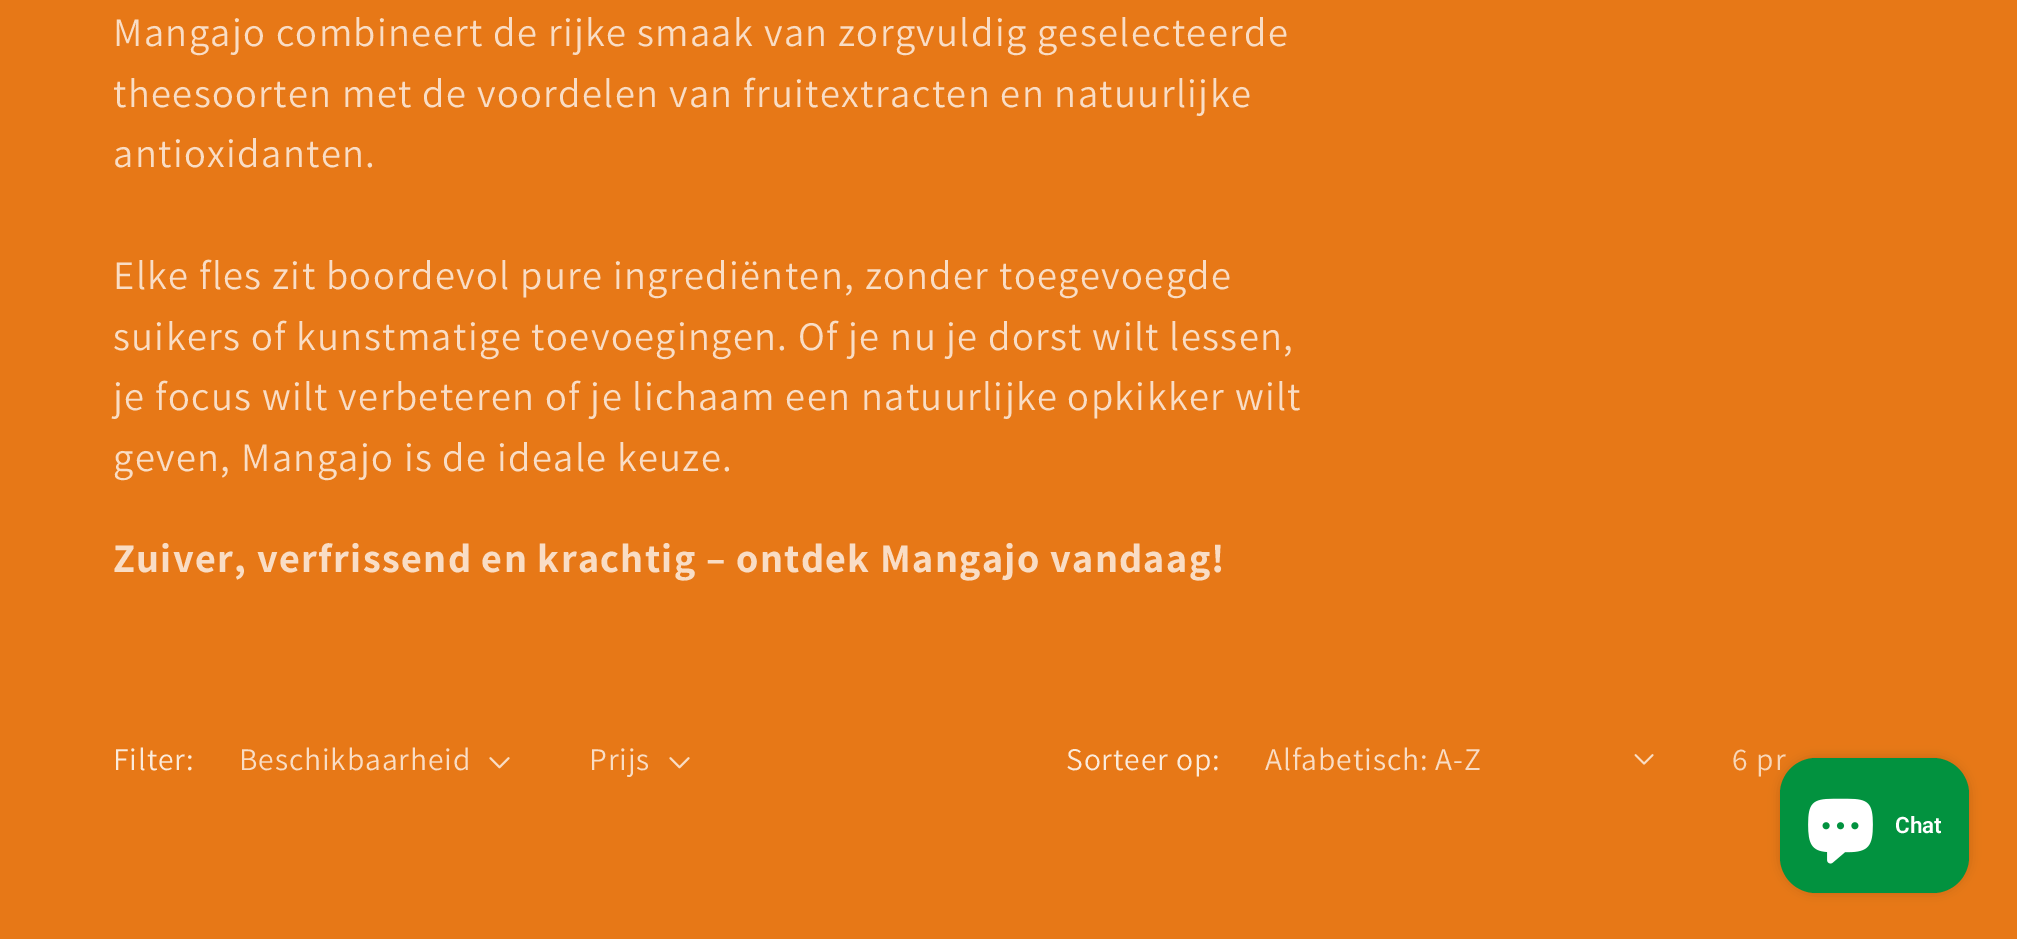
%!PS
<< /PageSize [2017 939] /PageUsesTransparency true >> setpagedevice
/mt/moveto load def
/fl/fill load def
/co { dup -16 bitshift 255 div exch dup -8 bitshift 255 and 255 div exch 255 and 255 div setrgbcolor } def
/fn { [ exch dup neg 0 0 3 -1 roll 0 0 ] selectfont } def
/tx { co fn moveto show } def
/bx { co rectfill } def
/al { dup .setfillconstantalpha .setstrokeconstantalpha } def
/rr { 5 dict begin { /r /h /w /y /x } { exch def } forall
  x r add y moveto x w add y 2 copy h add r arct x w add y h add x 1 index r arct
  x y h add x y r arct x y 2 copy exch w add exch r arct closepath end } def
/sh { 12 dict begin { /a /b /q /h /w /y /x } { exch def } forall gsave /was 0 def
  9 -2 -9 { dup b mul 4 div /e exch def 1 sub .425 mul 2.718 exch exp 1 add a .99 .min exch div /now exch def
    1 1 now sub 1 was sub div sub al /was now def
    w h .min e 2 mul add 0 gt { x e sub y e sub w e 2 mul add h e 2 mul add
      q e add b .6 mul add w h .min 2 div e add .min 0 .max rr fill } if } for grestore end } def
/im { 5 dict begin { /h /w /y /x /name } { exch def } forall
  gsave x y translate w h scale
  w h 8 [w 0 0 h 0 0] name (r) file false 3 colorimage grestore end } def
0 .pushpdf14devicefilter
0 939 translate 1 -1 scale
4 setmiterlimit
0 0 2017 939 16#E77817 bx
(media/1.raw) 489 757 21 12 im
(media/1.raw) 669 757 21 12 im
(media/2.raw) 1634 754 20 11 im
16#000000 co
1780 758 189 135 36 5.5 .15 sh
/Assistant-Regular 40.5 fn
16#F9DDC5 co
113 46 mt 1.35 0 (Mangajo combineert de rijke smaak van zorgvuldig geselecteerde) ashow
113 107 mt 1.35 0 (theesoorten met de voordelen van fruitextracten en natuurlijke) ashow
113 167 mt 1.35 0 (antioxidanten.) ashow
113 289 mt 1.35 0 (Elke fles zit boordevol pure ingrediënten, zonder toegevoegde) ashow
113 350 mt 1.35 0 (suikers of kunstmatige toevoegingen. Of je nu je dorst wilt lessen,) ashow
113 410 mt 1.35 0 (je focus wilt verbeteren of je lichaam een natuurlijke opkikker wilt) ashow
113 471 mt 1.35 0 (geven, Mangajo is de ideale keuze.) ashow
/Assistant-Bold 40.5 fn
113 572 mt 1.35 0 (Zuiver, verfrissend en krachtig – ontdek Mangajo vandaag!) ashow
/Assistant-Regular 31.5 fn
16#FBEBDC co
113 770 mt .9 0 (Filter:) ashow
16#F9DDC5 co
239 770 mt .9 0 (Beschikbaarheid) ashow
589 770 mt .9 0 (Prijs) ashow
16#FBEBDC co
1066 770 mt .9 0 (Sorteer op:) ashow
16#F9DDC5 co
1265 770 mt .9 0 (Alfabetisch: A-Z) ashow
16#F8D7B9 co
1732 770 mt 1.35 0 (6 pr) ashow
16#02923F co
1780 758 189 135 36 rr fl
(media/3.raw) 1808 798 65 66 im
(Chat) 1895 833 /Roboto-SemiBold 22.5 16#FFFFFF tx
.poppdf14devicefilter showpage
